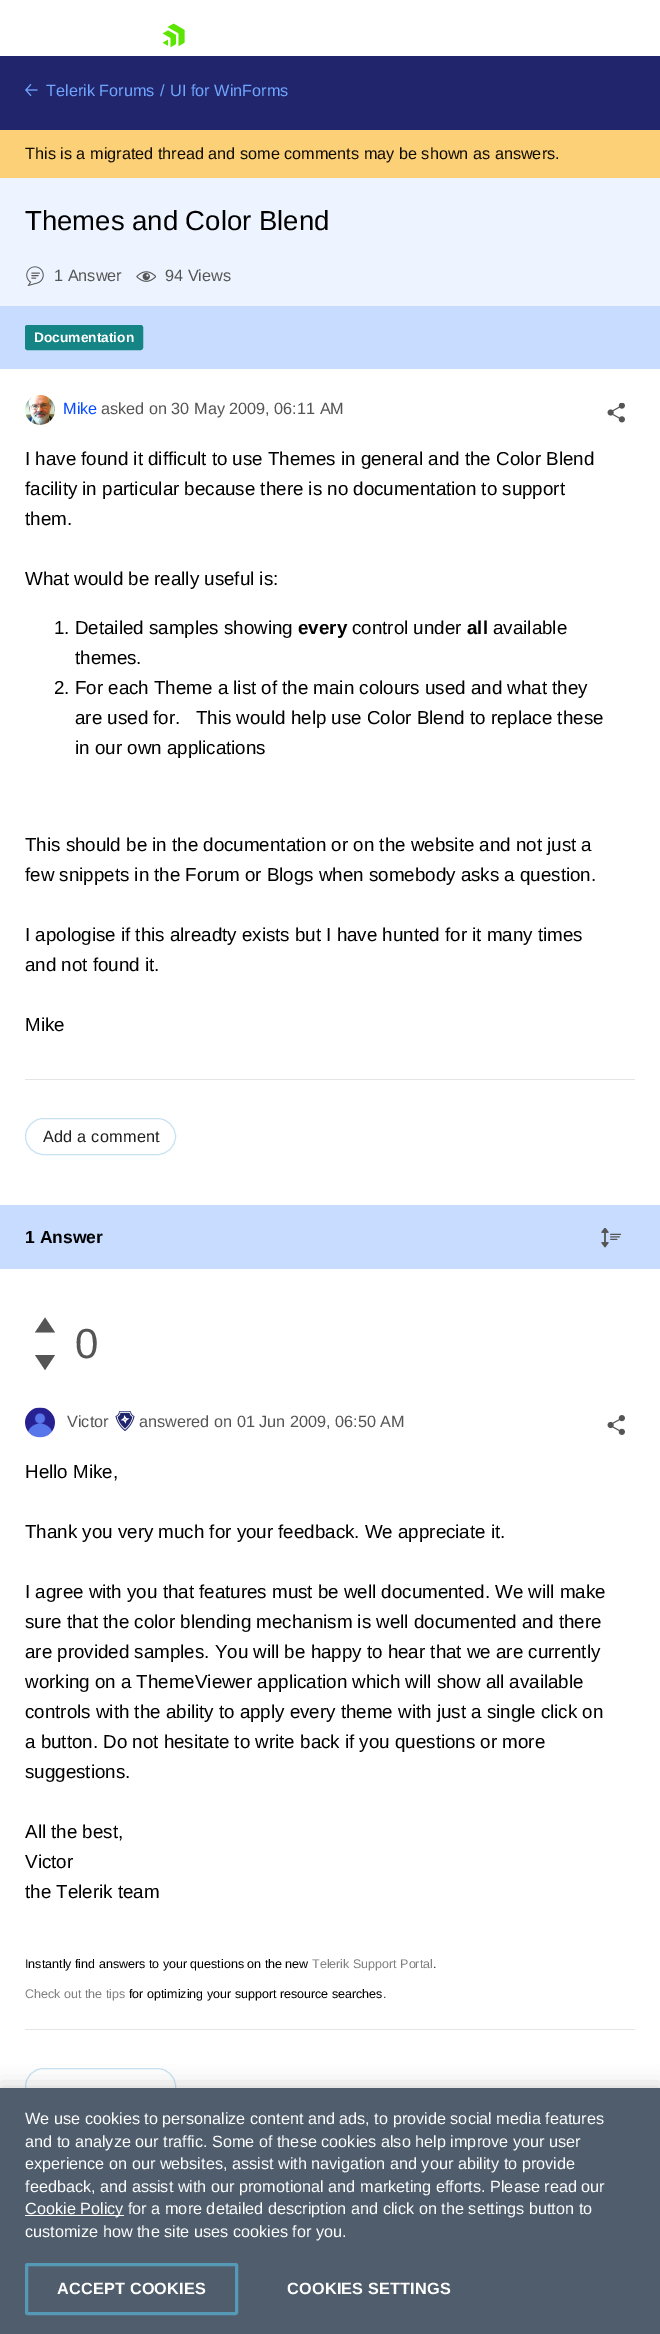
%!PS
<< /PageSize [660 2334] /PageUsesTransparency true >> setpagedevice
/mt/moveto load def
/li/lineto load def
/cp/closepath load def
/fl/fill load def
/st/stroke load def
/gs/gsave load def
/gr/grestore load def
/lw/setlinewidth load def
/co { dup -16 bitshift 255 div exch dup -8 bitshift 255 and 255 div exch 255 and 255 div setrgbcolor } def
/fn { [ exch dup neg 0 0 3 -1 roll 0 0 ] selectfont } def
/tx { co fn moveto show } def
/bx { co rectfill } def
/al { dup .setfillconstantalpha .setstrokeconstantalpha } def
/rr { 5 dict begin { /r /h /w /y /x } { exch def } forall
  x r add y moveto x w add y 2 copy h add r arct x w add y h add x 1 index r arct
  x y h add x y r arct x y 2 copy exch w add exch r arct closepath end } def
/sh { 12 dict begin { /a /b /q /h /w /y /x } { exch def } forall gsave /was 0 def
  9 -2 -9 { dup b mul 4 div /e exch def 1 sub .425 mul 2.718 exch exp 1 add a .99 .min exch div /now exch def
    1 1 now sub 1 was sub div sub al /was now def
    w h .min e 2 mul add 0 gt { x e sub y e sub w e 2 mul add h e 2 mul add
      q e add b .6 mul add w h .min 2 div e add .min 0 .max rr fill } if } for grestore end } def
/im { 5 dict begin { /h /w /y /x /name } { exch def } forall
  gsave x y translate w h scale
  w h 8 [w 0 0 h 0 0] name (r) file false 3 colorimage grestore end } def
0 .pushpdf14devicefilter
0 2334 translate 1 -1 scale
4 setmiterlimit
0 0 660 2334 16#FFFFFF bx
(media/1.raw) 163 23 22 25 im
0 56 660 74 16#20256C bx
(media/2.raw) 25 84 13 12 im
0 130 660 48 16#FCD077 bx
0 178 660 128 16#EDF4FF bx
(media/3.raw) 26 266 18 20 im
(media/4.raw) 136 271 20 11 im
0 306 660 63 16#C7DCFF bx
16#148484 co
25.5 325.5 117 24 2 rr gs fl gr
st
(media/5.raw) 25 395 30 30 im
(media/6.raw) 607 403 18 20 im
25 1079 610 1 16#E5E5E5 bx
16#C8E2F2 co
25.5 1118.5 150 36 18 rr st
0 1205 660 64 16#C7DCFF bx
(media/7.raw) 601 1228 20 20 im
16#555555 co
55 1332.5 mt 35 1332.5 li 45 1317.5 li cp 35 1355 mt 55 1355 li 45 1370 li cp fl
(media/8.raw) 25 1407 30 31 im
(media/9.raw) 115 1411 20 20 im
(media/10.raw) 607 1415 18 20 im
25 2029 610 1 16#E5E5E5 bx
16#C8E2F2 co
25.5 2068.5 150 36 18 rr st
16#000000 co
0 2088 660 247 0 11 .2 sh
0 2088 660 246 16#4F5D6C bx
25 2215 99 1 16#FFFFFF bx
16#5699B6 co
3 lw
26.5 2264.5 210 49 1 rr st
(Telerik Forums) 46 96 /LiberationSans-Regular 16.25 16#71A6FF tx
(/) 160 96 /LiberationSans-Regular 16.25 16#71A6FF tx
(UI for WinForms) 170 96 /LiberationSans-Regular 16.25 16#71A6FF tx
(This is a migrated thread and some comments may be shown as answers.) 25 159 /LiberationSans-Regular 16.25 16#100C02 tx
(Themes and Color Blend) 25 230 /LiberationSans-Regular 27.5 16#000000 tx
(1 Answer) 54 281 /LiberationSans-Regular 16.25 16#555555 tx
(94 Views) 165 281 /LiberationSans-Regular 16.25 16#555555 tx
(Documentation) 34 342 /LiberationSans-Bold 13.75 16#FFFFFF tx
(Mike) 63 414 /LiberationSans-Regular 16.25 16#054BFF tx
(asked on 30 May 2009, 06:11 AM) 101 414 /LiberationSans-Regular 16.25 16#555555 tx
(I have found it difficult to use Themes in general and the Color Blend) 25 465 /LiberationSans-Regular 18.75 16#000000 tx
(facility in particular because there is no documentation to support) 25 495 /LiberationSans-Regular 18.75 16#000000 tx
(them.) 25 525 /LiberationSans-Regular 18.75 16#000000 tx
(What would be really useful is:) 25 585 /LiberationSans-Regular 18.75 16#000000 tx
(1. Detailed samples showing) 54 634 /LiberationSans-Regular 18.75 16#000000 tx
(every) 298 634 /LiberationSans-Bold 18.75 16#000000 tx
(control under) 352 634 /LiberationSans-Regular 18.75 16#000000 tx
(all) 467 634 /LiberationSans-Bold 18.75 16#000000 tx
(available) 493 634 /LiberationSans-Regular 18.75 16#000000 tx
(themes.) 75 664 /LiberationSans-Regular 18.75 16#000000 tx
(2. For each Theme a list of the main colours used and what they) 54 694 /LiberationSans-Regular 18.75 16#000000 tx
(are used for.   This would help use Color Blend to replace these) 75 724 /LiberationSans-Regular 18.75 16#000000 tx
(in our own applications) 75 754 /LiberationSans-Regular 18.75 16#000000 tx
(This should be in the documentation or on the website and not just a) 25 851 /LiberationSans-Regular 18.75 16#000000 tx
(few snippets in the Forum or Blogs when somebody asks a question.) 25 881 /LiberationSans-Regular 18.75 16#000000 tx
(I apologise if this alreadty exists but I have hunted for it many times) 25 941 /LiberationSans-Regular 18.75 16#000000 tx
(and not found it.) 25 971 /LiberationSans-Regular 18.75 16#000000 tx
(Mike) 25 1031 /LiberationSans-Regular 18.75 16#000000 tx
/LiberationSans-Regular 16.25 fn
16#1F1F1F co
43 1142 mt .25 0 (Add a comment) ashow
(1 Answer) 25 1243 /LiberationSans-Bold 17.5 16#000000 tx
(0) 75 1358 /LiberationSans-Regular 42 16#555555 tx
(Victor) 67 1427 /LiberationSans-Regular 16.25 16#555555 tx
(answered on 01 Jun 2009, 06:50 AM) 139 1427 /LiberationSans-Regular 16.25 16#555555 tx
(Hello Mike,) 25 1478 /LiberationSans-Regular 18.75 16#000000 tx
(Thank you very much for your feedback. We appreciate it.) 25 1538 /LiberationSans-Regular 18.75 16#000000 tx
(I agree with you that features must be well documented. We will make) 25 1598 /LiberationSans-Regular 18.75 16#000000 tx
(sure that the color blending mechanism is well documented and there) 25 1628 /LiberationSans-Regular 18.75 16#000000 tx
(are provided samples. You will be happy to hear that we are currently) 25 1658 /LiberationSans-Regular 18.75 16#000000 tx
(working on a ThemeViewer application which will show all available) 25 1688 /LiberationSans-Regular 18.75 16#000000 tx
(controls with the ability to apply every theme with just a single click on) 25 1718 /LiberationSans-Regular 18.75 16#000000 tx
(a button. Do not hesitate to write back if you questions or more) 25 1748 /LiberationSans-Regular 18.75 16#000000 tx
(suggestions.) 25 1778 /LiberationSans-Regular 18.75 16#000000 tx
(All the best,) 25 1838 /LiberationSans-Regular 18.75 16#000000 tx
(Victor) 25 1868 /LiberationSans-Regular 18.75 16#000000 tx
(the Telerik team) 25 1898 /LiberationSans-Regular 18.75 16#000000 tx
(Instantly find answers to your questions on the new) 25 1968 /LiberationSans-Regular 12.5 16#000000 tx
(Telerik Support Portal) 312 1968 /LiberationSans-Regular 12.5 16#808080 tx
(.) 433 1968 /LiberationSans-Regular 12.5 16#000000 tx
(Check out the tips) 25 1998 /LiberationSans-Regular 12.5 16#808080 tx
(for optimizing your support resource searches.) 129 1998 /LiberationSans-Regular 12.5 16#000000 tx
(We use cookies to personalize content and ads, to provide social media features) 25 2124 /LiberationSans-Regular 16.25 16#FFFFFF tx
(and to analyze our traffic. Some of these cookies also help improve your user) 25 2147 /LiberationSans-Regular 16.25 16#FFFFFF tx
(experience on our websites, assist with navigation and your ability to provide) 25 2169 /LiberationSans-Regular 16.25 16#FFFFFF tx
(feedback, and assist with our promotional and marketing efforts. Please read our) 25 2192 /LiberationSans-Regular 16.25 16#FFFFFF tx
(Cookie Policy for a more detailed description and click on the settings button to) 25 2214 /LiberationSans-Regular 16.25 16#FFFFFF tx
(customize how the site uses cookies for you.) 25 2237 /LiberationSans-Regular 16.25 16#FFFFFF tx
/LiberationSans-Bold 16.25 fn
57 2294 mt .2 0 (ACCEPT COOKIES) ashow
287 2294 mt .2 0 (COOKIES SETTINGS) ashow
.poppdf14devicefilter showpage
